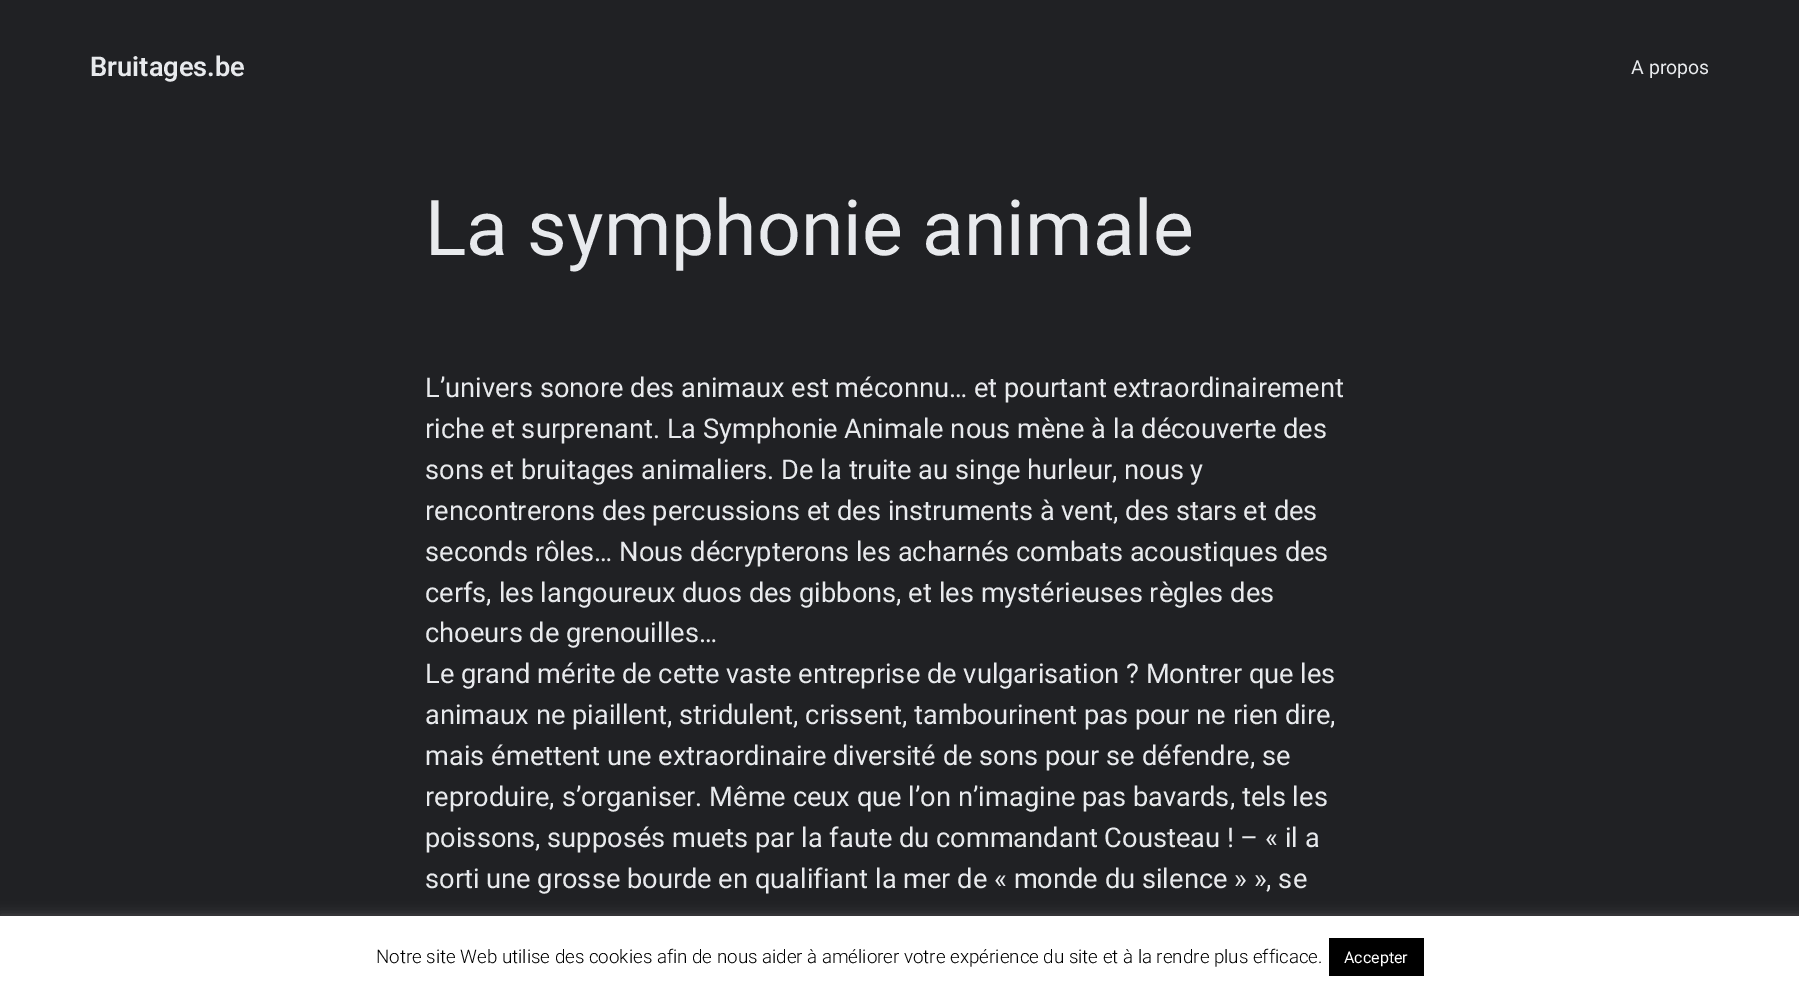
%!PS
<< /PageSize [1799 991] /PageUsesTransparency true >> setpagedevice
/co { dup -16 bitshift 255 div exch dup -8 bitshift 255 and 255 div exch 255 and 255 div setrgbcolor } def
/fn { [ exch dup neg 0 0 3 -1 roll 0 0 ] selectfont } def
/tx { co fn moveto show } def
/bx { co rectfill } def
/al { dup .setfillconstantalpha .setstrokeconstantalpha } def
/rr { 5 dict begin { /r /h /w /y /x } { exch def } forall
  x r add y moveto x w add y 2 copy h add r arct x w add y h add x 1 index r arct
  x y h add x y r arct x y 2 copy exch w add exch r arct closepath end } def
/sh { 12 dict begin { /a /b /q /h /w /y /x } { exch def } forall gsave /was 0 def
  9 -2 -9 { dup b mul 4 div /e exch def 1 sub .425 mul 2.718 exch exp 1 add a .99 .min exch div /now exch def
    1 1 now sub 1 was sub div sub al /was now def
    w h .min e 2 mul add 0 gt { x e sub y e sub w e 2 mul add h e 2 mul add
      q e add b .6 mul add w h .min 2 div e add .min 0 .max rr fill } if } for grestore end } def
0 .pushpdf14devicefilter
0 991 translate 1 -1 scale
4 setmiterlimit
0 0 1799 991 16#202124 bx
16#ACABAB co
0 915 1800 75 0 6 .3 sh
0 916 1799 75 16#FFFFFF bx
1329 938 95 38 16#000000 bx
(Bruitages.be) 90 76 /Roboto-SemiBold 27.25 16#E8EAED tx
(A propos) 1631 74 /Roboto-Regular 19.5 16#E8EAED tx
(La symphonie animale) 425 255 /Roboto-Regular 77 16#E8EAED tx
(L’univers sonore des animaux est méconnu… et pourtant extraordinairement) 425 397 /Roboto-Regular 27.25 16#E8EAED tx
(riche et surprenant. La Symphonie Animale nous mène à la découverte des) 425 438 /Roboto-Regular 27.25 16#E8EAED tx
(sons et bruitages animaliers. De la truite au singe hurleur, nous y) 425 479 /Roboto-Regular 27.25 16#E8EAED tx
(rencontrerons des percussions et des instruments à vent, des stars et des) 425 520 /Roboto-Regular 27.25 16#E8EAED tx
(seconds rôles… Nous décrypterons les acharnés combats acoustiques des) 425 561 /Roboto-Regular 27.25 16#E8EAED tx
(cerfs, les langoureux duos des gibbons, et les mystérieuses règles des) 425 602 /Roboto-Regular 27.25 16#E8EAED tx
(choeurs de grenouilles…) 425 642 /Roboto-Regular 27.25 16#E8EAED tx
(Le grand mérite de cette vaste entreprise de vulgarisation ? Montrer que les) 425 683 /Roboto-Regular 27.25 16#E8EAED tx
(animaux ne piaillent, stridulent, crissent, tambourinent pas pour ne rien dire,) 425 724 /Roboto-Regular 27.25 16#E8EAED tx
(mais émettent une extraordinaire diversité de sons pour se défendre, se) 425 765 /Roboto-Regular 27.25 16#E8EAED tx
(reproduire, s’organiser. Même ceux que l’on n’imagine pas bavards, tels les) 425 806 /Roboto-Regular 27.25 16#E8EAED tx
(poissons, supposés muets par la faute du commandant Cousteau ! – « il a) 425 847 /Roboto-Regular 27.25 16#E8EAED tx
(sorti une grosse bourde en qualifiant la mer de « monde du silence » », se) 425 888 /Roboto-Regular 27.25 16#E8EAED tx
(Notre site Web utilise des cookies afin de nous aider à améliorer votre expérience du site et à la rendre plus efficace.) 376 963 /Roboto-Light 18.75 16#000000 tx
(Accepter) 1344 963 /Roboto-Regular 16 16#FFFFFF tx
.poppdf14devicefilter showpage
